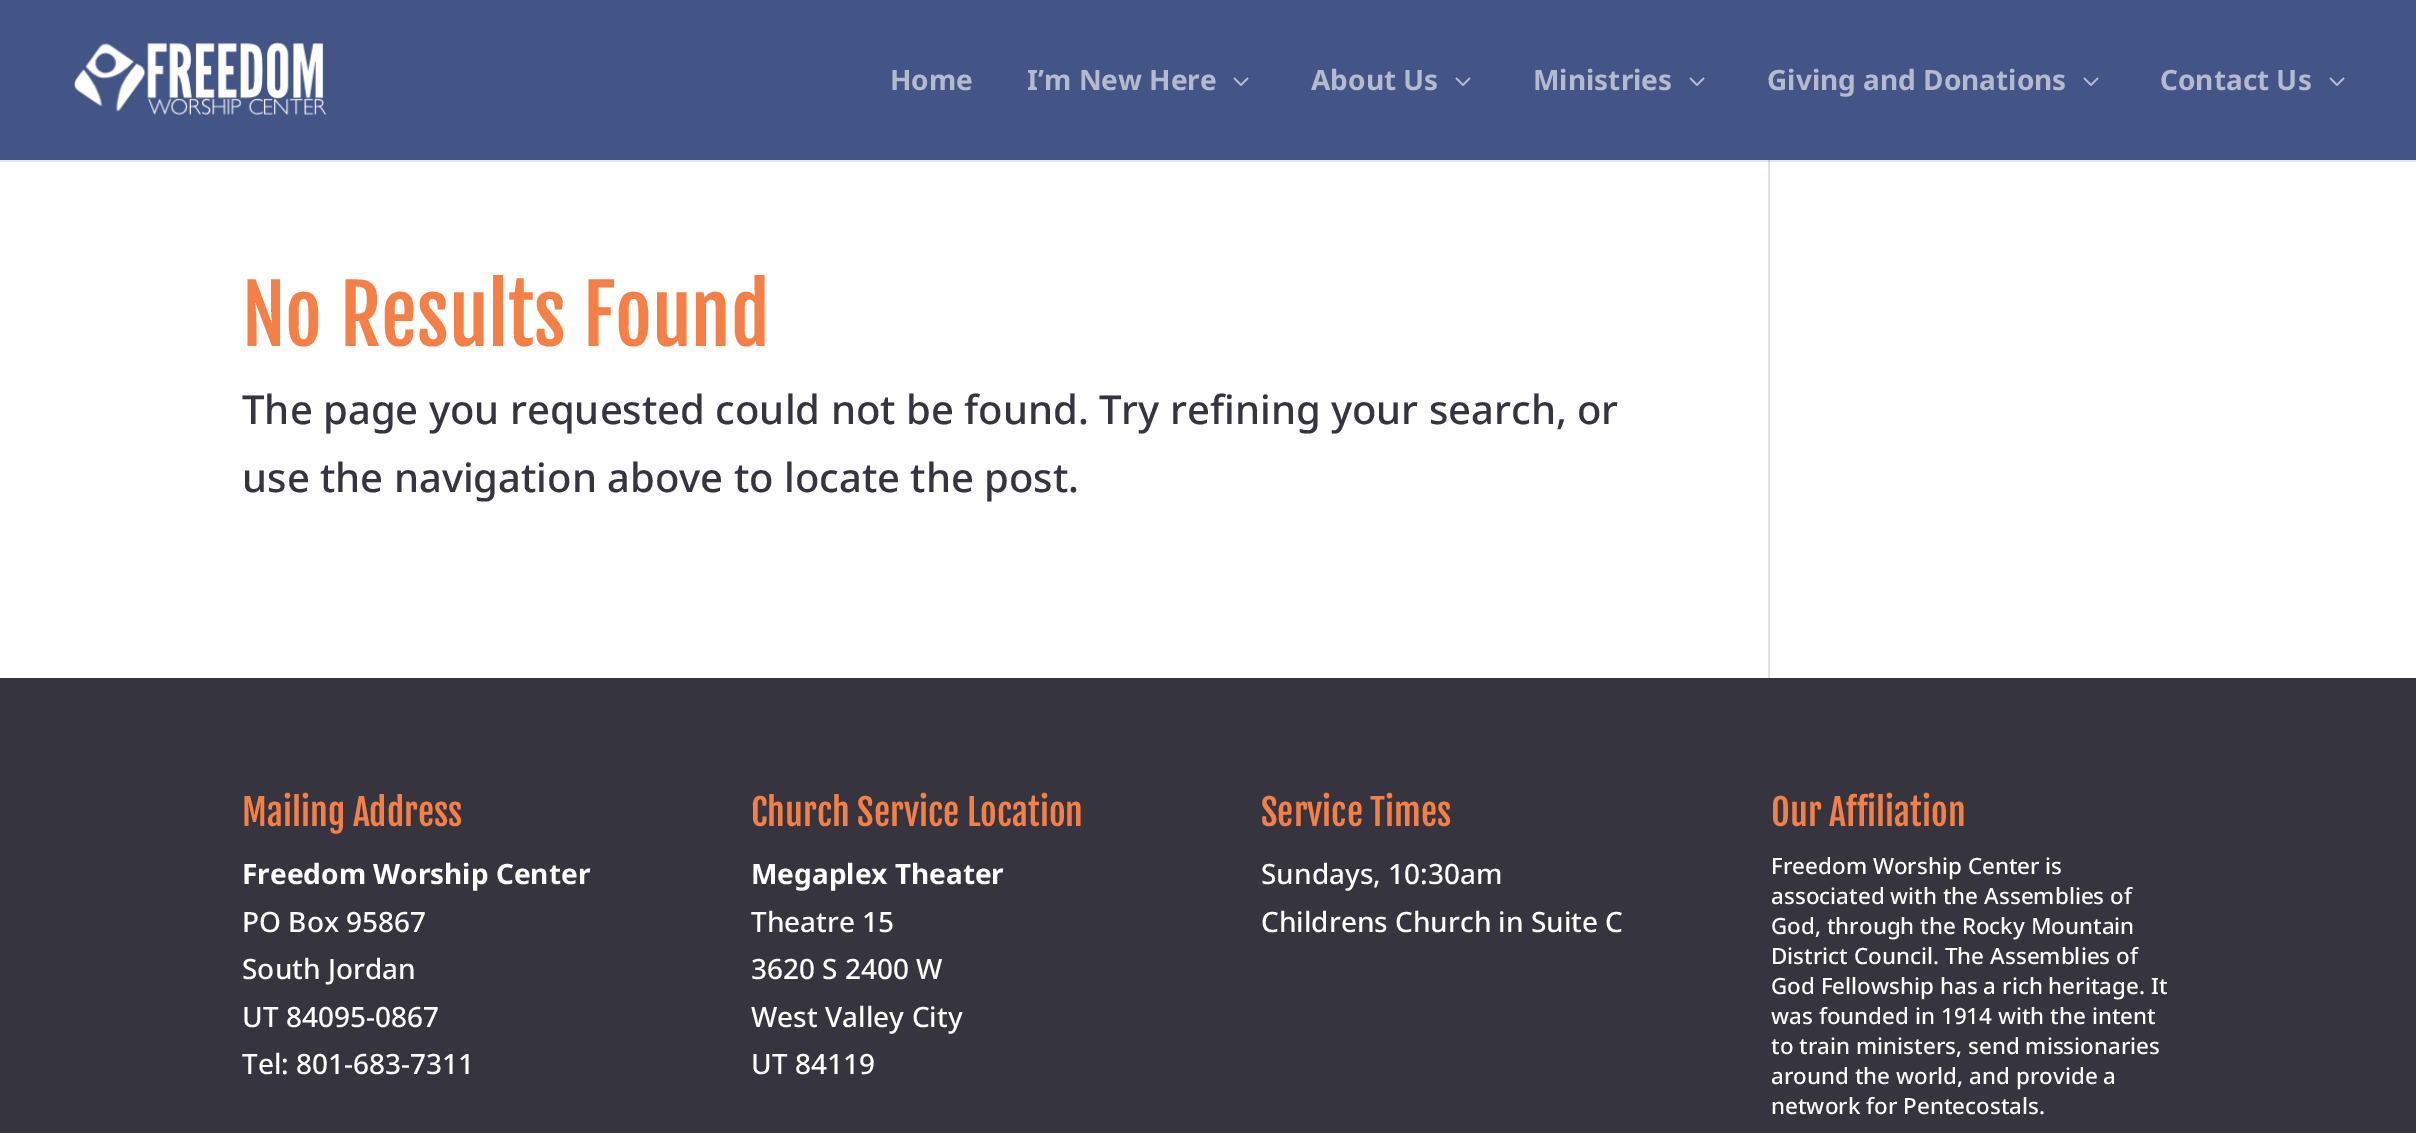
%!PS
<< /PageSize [2416 1133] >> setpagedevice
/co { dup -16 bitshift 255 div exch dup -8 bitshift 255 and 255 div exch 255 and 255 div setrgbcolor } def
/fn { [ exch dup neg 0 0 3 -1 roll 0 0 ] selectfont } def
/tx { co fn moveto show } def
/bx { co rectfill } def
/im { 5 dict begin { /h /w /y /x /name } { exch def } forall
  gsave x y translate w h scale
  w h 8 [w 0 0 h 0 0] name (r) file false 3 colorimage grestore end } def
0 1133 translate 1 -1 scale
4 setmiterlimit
0 0 2416 1133 16#435487 bx
(media/1.raw) 74 42 252 73 im
(media/2.raw) 1233 77 16 9 im
(media/2.raw) 1455 77 16 9 im
(media/2.raw) 1689 77 16 9 im
(media/2.raw) 2083 77 16 9 im
(media/2.raw) 2329 77 16 9 im
0 162 2416 516 16#FFFFFF bx
0 160 2416 2 16#E6E6E6 bx
1768 160 2 518 16#E2E2E2 bx
1768 160 2 2 16#CBCBCB bx
0 678 2416 455 16#36353F bx
(Home) 890 90 /NotoSans-Bold 28 16#B4BBCF tx
(I’m New Here) 1027 90 /NotoSans-Bold 28 16#B4BBCF tx
(About Us) 1311 90 /NotoSans-Bold 28 16#B4BBCF tx
(Ministries) 1533 90 /NotoSans-Bold 28 16#B4BBCF tx
(Giving and Donations) 1767 90 /NotoSans-Bold 28 16#B4BBCF tx
(Contact Us) 2160 90 /NotoSans-Bold 28 16#B4BBCF tx
(No Results Found) 242 346 /FjallaOne-Regular 80 16#F48047 tx
(The page you requested could not be found. Try refining your search, or) 242 424 /NotoSans-Medium 40 16#36353F tx
(use the navigation above to locate the post.) 242 492 /NotoSans-Medium 40 16#36353F tx
(Mailing Address) 242 826 /FjallaOne-Regular 36 16#F48047 tx
(Freedom Worship Center) 242 884 /NotoSans-Bold 28 16#FFFFFF tx
(PO Box 95867) 242 932 /NotoSans-Medium 28 16#FFFFFF tx
(South Jordan) 242 979 /NotoSans-Medium 28 16#FFFFFF tx
(UT 84095-0867) 242 1027 /NotoSans-Medium 28 16#FFFFFF tx
(Tel: 801-683-7311) 242 1074 /NotoSans-Medium 28 16#FFFFFF tx
(Church Service Location) 751 826 /FjallaOne-Regular 36 16#F48047 tx
(Megaplex Theater) 751 884 /NotoSans-Bold 28 16#FFFFFF tx
(Theatre 15) 751 932 /NotoSans-Medium 28 16#FFFFFF tx
(3620 S 2400 W) 751 979 /NotoSans-Medium 28 16#FFFFFF tx
(West Valley City) 751 1027 /NotoSans-Medium 28 16#FFFFFF tx
(UT 84119) 751 1074 /NotoSans-Medium 28 16#FFFFFF tx
(Service Times) 1261 826 /FjallaOne-Regular 36 16#F48047 tx
(Sundays, 10:30am) 1261 884 /NotoSans-Medium 28 16#FFFFFF tx
(Childrens Church in Suite C) 1261 932 /NotoSans-Medium 28 16#FFFFFF tx
(Our Affiliation) 1771 826 /FjallaOne-Regular 36 16#F48047 tx
(Freedom Worship Center is) 1771 874 /NotoSans-Medium 22.4 16#FFFFFF tx
(associated with the Assemblies of) 1771 904 /NotoSans-Medium 22.4 16#FFFFFF tx
(God, through the Rocky Mountain) 1771 934 /NotoSans-Medium 22.4 16#FFFFFF tx
(District Council. The Assemblies of) 1771 964 /NotoSans-Medium 22.4 16#FFFFFF tx
(God Fellowship has a rich heritage. It) 1771 994 /NotoSans-Medium 22.4 16#FFFFFF tx
(was founded in 1914 with the intent) 1771 1024 /NotoSans-Medium 22.4 16#FFFFFF tx
(to train ministers, send missionaries) 1771 1054 /NotoSans-Medium 22.4 16#FFFFFF tx
(around the world, and provide a) 1771 1084 /NotoSans-Medium 22.4 16#FFFFFF tx
(network for Pentecostals.) 1771 1114 /NotoSans-Medium 22.4 16#FFFFFF tx
showpage
